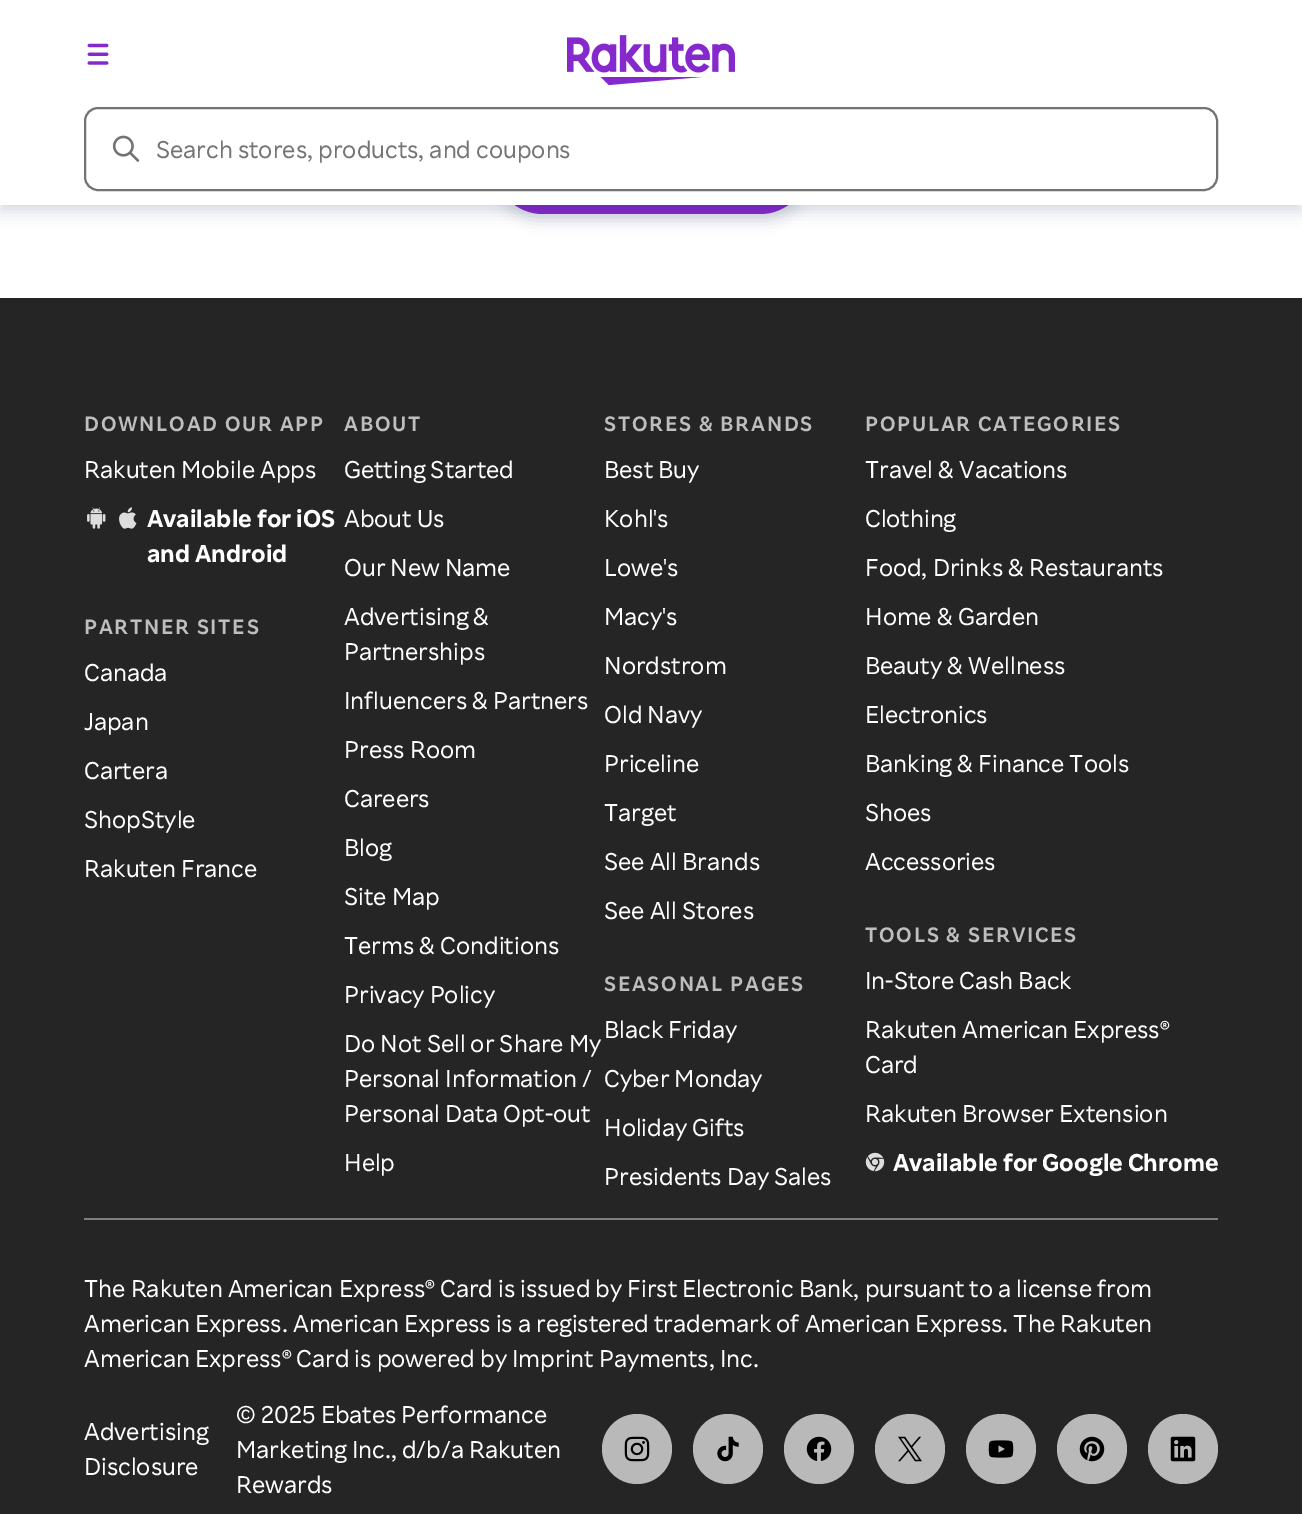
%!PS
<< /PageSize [1302 1514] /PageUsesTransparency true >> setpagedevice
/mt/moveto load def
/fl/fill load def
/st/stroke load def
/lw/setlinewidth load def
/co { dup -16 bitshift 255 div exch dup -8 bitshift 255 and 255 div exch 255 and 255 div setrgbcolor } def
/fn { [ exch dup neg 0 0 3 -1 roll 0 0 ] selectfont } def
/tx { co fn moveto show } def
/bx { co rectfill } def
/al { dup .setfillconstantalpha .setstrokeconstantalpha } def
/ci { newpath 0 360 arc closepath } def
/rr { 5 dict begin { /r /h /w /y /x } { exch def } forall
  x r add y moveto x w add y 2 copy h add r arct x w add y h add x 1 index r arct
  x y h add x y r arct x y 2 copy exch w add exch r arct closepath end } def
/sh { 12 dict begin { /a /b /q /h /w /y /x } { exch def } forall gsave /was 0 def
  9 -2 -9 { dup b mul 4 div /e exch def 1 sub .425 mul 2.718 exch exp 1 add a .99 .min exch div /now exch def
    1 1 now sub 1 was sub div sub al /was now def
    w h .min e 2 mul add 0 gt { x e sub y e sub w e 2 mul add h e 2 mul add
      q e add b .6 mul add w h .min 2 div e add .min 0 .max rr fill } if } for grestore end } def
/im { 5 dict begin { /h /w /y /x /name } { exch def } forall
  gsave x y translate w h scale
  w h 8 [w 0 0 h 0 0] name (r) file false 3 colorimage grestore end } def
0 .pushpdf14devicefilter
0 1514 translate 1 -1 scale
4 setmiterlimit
0 0 1302 1514 16#FFFFFF bx
16#0A1646 co
494 123 315 98 49 7 .15 sh
16#8529CD co
494 116 315 98 49 rr fl
16#0A1646 co
0 7 1302 205 0 7 .15 sh
0 0 1302 205 16#FFFFFF bx
(media/1.raw) 87 43 22 22 im
(media/2.raw) 567 35 168 51 im
16#737373 co
2 lw
85 108 1132 82 13 rr st
(media/3.raw) 112 135 28 27 im
0 298 1302 1216 16#252525 bx
(media/4.raw) 87 507 19 22 im
(media/5.raw) 119 507 18 22 im
(media/6.raw) 865 1152 20 20 im
84 1218 1134 2 16#7E7E7E bx
16#B9B9B9 co
637 1449 35 ci fl
(media/7.raw) 624 1436 26 26 im
728 1449 35 ci fl
(media/8.raw) 717 1436 22 26 im
819 1449 35 ci fl
(media/9.raw) 806 1436 26 25 im
910 1449 35 ci fl
(media/10.raw) 898 1436 24 26 im
1001 1449 35 ci fl
(media/11.raw) 988 1440 26 18 im
1092 1449 35 ci fl
(media/12.raw) 1079 1436 26 26 im
1183 1449 35 ci fl
(media/13.raw) 1170 1436 26 26 im
(Search stores, products, and coupons) 156 158 /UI-Regular 24.5 16#757575 tx
/UI-SemiBold 21 fn
16#BEBEBE co
84 431 mt 1.75 0 (DOWNLOAD OUR APP) ashow
(Rakuten Mobile Apps) 84 478 /UI-Regular 24.5 16#FFFFFF tx
(Available for iOS) 147 527 /UI-Bold 24.5 16#FFFFFF tx
(and Android) 147 562 /UI-Bold 24.5 16#FFFFFF tx
/UI-SemiBold 21 fn
16#BEBEBE co
84 634 mt 1.75 0 (PARTNER SITES) ashow
(Canada) 84 681 /UI-Regular 24.5 16#FFFFFF tx
(Japan) 84 730 /UI-Regular 24.5 16#FFFFFF tx
(Cartera) 84 779 /UI-Regular 24.5 16#FFFFFF tx
(ShopStyle) 84 828 /UI-Regular 24.5 16#FFFFFF tx
(Rakuten France) 84 877 /UI-Regular 24.5 16#FFFFFF tx
/UI-SemiBold 21 fn
16#BEBEBE co
344 431 mt 1.75 0 (ABOUT) ashow
(Getting Started) 344 478 /UI-Regular 24.5 16#FFFFFF tx
(About Us) 344 527 /UI-Regular 24.5 16#FFFFFF tx
(Our New Name) 344 576 /UI-Regular 24.5 16#FFFFFF tx
(Advertising &) 344 625 /UI-Regular 24.5 16#FFFFFF tx
(Partnerships) 344 660 /UI-Regular 24.5 16#FFFFFF tx
(Influencers & Partners) 344 709 /UI-Regular 24.5 16#FFFFFF tx
(Press Room) 344 758 /UI-Regular 24.5 16#FFFFFF tx
(Careers) 344 807 /UI-Regular 24.5 16#FFFFFF tx
(Blog) 344 856 /UI-Regular 24.5 16#FFFFFF tx
(Site Map) 344 905 /UI-Regular 24.5 16#FFFFFF tx
(Terms & Conditions) 344 954 /UI-Regular 24.5 16#FFFFFF tx
(Privacy Policy) 344 1003 /UI-Regular 24.5 16#FFFFFF tx
(Do Not Sell or Share My) 344 1052 /UI-Regular 24.5 16#FFFFFF tx
(Personal Information /) 344 1087 /UI-Regular 24.5 16#FFFFFF tx
(Personal Data Opt-out) 344 1122 /UI-Regular 24.5 16#FFFFFF tx
(Help) 344 1171 /UI-Regular 24.5 16#FFFFFF tx
/UI-SemiBold 21 fn
16#BEBEBE co
604 431 mt 1.75 0 (STORES & BRANDS) ashow
(Best Buy) 604 478 /UI-Regular 24.5 16#FFFFFF tx
(Kohl's) 604 527 /UI-Regular 24.5 16#FFFFFF tx
(Lowe's) 604 576 /UI-Regular 24.5 16#FFFFFF tx
(Macy's) 604 625 /UI-Regular 24.5 16#FFFFFF tx
(Nordstrom) 604 674 /UI-Regular 24.5 16#FFFFFF tx
(Old Navy) 604 723 /UI-Regular 24.5 16#FFFFFF tx
(Priceline) 604 772 /UI-Regular 24.5 16#FFFFFF tx
(Target) 604 821 /UI-Regular 24.5 16#FFFFFF tx
(See All Brands) 604 870 /UI-Regular 24.5 16#FFFFFF tx
(See All Stores) 604 919 /UI-Regular 24.5 16#FFFFFF tx
/UI-SemiBold 21 fn
16#BEBEBE co
604 991 mt 1.75 0 (SEASONAL PAGES) ashow
(Black Friday) 604 1038 /UI-Regular 24.5 16#FFFFFF tx
(Cyber Monday) 604 1087 /UI-Regular 24.5 16#FFFFFF tx
(Holiday Gifts) 604 1136 /UI-Regular 24.5 16#FFFFFF tx
(Presidents Day Sales) 604 1185 /UI-Regular 24.5 16#FFFFFF tx
/UI-SemiBold 21 fn
16#BEBEBE co
865 431 mt 1.75 0 (POPULAR CATEGORIES) ashow
(Travel & Vacations) 865 478 /UI-Regular 24.5 16#FFFFFF tx
(Clothing) 865 527 /UI-Regular 24.5 16#FFFFFF tx
(Food, Drinks & Restaurants) 865 576 /UI-Regular 24.5 16#FFFFFF tx
(Home & Garden) 865 625 /UI-Regular 24.5 16#FFFFFF tx
(Beauty & Wellness) 865 674 /UI-Regular 24.5 16#FFFFFF tx
(Electronics) 865 723 /UI-Regular 24.5 16#FFFFFF tx
(Banking & Finance Tools) 865 772 /UI-Regular 24.5 16#FFFFFF tx
(Shoes) 865 821 /UI-Regular 24.5 16#FFFFFF tx
(Accessories) 865 870 /UI-Regular 24.5 16#FFFFFF tx
/UI-SemiBold 21 fn
16#BEBEBE co
865 942 mt 1.75 0 (TOOLS & SERVICES) ashow
(In-Store Cash Back) 865 989 /UI-Regular 24.5 16#FFFFFF tx
(Rakuten American Express®) 865 1038 /UI-Regular 24.5 16#FFFFFF tx
(Card) 865 1073 /UI-Regular 24.5 16#FFFFFF tx
(Rakuten Browser Extension) 865 1122 /UI-Regular 24.5 16#FFFFFF tx
(Available for Google Chrome) 893 1171 /UI-Bold 24.5 16#FFFFFF tx
(The Rakuten American Express® Card is issued by First Electronic Bank, pursuant to a license from) 84 1297 /UI-Regular 24.5 16#FFFFFF tx
(American Express. American Express is a registered trademark of American Express. The Rakuten) 84 1332 /UI-Regular 24.5 16#FFFFFF tx
(American Express® Card is powered by Imprint Payments, Inc.) 84 1367 /UI-Regular 24.5 16#FFFFFF tx
(Advertising) 84 1440 /UI-Regular 24.5 16#FFFFFF tx
(Disclosure) 84 1475 /UI-Regular 24.5 16#FFFFFF tx
(© 2025 Ebates Performance) 236 1423 /UI-Regular 24.5 16#FFFFFF tx
(Marketing Inc., d/b/a Rakuten) 236 1458 /UI-Regular 24.5 16#FFFFFF tx
(Rewards) 236 1493 /UI-Regular 24.5 16#FFFFFF tx
.poppdf14devicefilter showpage
